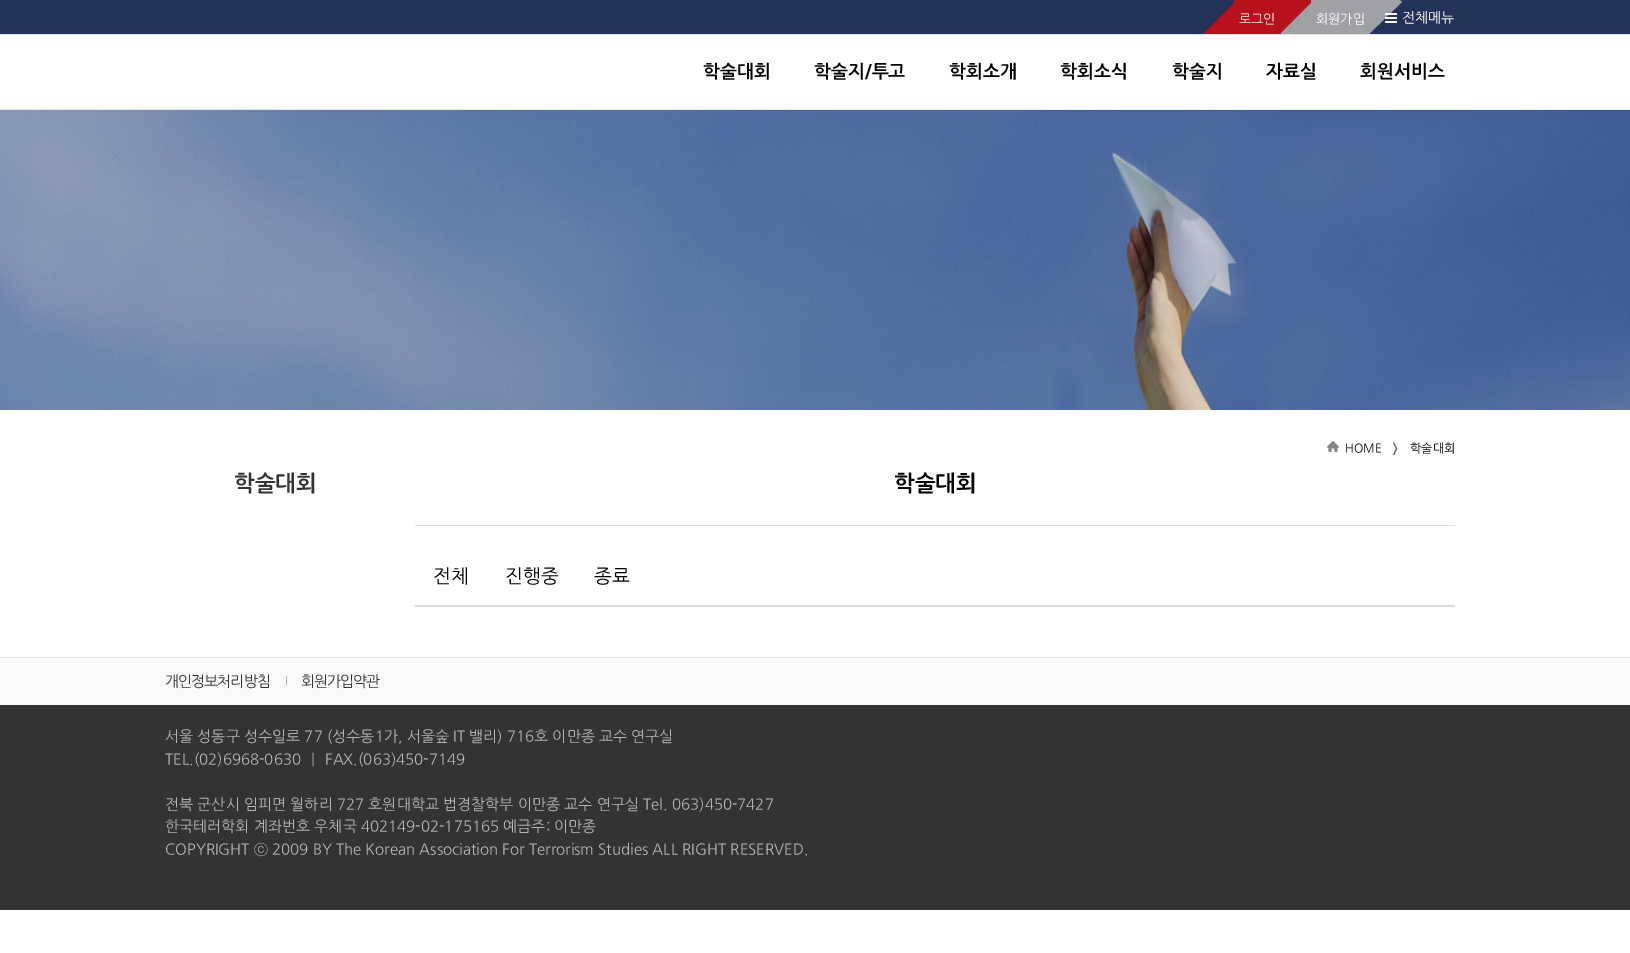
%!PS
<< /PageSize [1630 953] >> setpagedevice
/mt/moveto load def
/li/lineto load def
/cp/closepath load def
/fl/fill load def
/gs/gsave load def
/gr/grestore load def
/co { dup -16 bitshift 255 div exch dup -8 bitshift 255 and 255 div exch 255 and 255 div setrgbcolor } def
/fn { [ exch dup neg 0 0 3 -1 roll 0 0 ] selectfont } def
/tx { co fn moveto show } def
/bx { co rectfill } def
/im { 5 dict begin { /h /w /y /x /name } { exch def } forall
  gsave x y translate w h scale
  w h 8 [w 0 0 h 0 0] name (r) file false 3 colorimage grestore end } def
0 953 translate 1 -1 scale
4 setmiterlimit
0 0 1630 953 16#FFFFFF bx
0 0 1630 34 16#243259 bx
0 34 1630 1 16#E0E0E0 bx
gs
0 0 1630 34 rectclip
16#B7111B co
1235 2 mt 1267 34 li 1235 65 li 1203 34 li cp fl
gr
16#B7111B co
1282 -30 mt 1313 2 li 1282 33 li 1250 2 li cp fl
gs
0 0 1630 34 rectclip
16#A0A1A5 co
1312 2 mt 1343 34 li 1312 65 li 1280 34 li cp fl
gr
1234 0 47 34 16#B7111B bx
16#A0A1A5 co
1370 -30 mt 1402 2 li 1370 33 li 1339 1 li cp fl
1311 0 59 34 16#A0A1A5 bx
(media/1.raw) 1385 13 12 10 im
0 109 1630 1 16#E6E6E6 bx
(media/2.raw) 0 110 1630 300 im
(media/3.raw) 1327 441 12 11 im
415 525 1040 1 16#DDDDDD bx
415 605 1040 2 16#DBDBDB bx
0 658 1630 47 16#F9F9F9 bx
0 657 1630 1 16#E3E3E3 bx
0 705 1630 205 16#333333 bx
(로그인) 1239 23 /NanumGothic-Regular 13 16#FFFFFF tx
(회원가입) 1316 23 /NanumGothic-Regular 13 16#FFFFFF tx
(전체메뉴) 1402 22 /NanumGothic-Regular 14 16#FFFFFF tx
(학술대회) 703 77 /NanumGothic-Bold 18 16#000000 tx
(학술지/투고) 814 77 /NanumGothic-Bold 18 16#000000 tx
(학회소개) 949 77 /NanumGothic-Bold 18 16#000000 tx
(학회소식) 1060 77 /NanumGothic-Bold 18 16#000000 tx
(학술지) 1172 77 /NanumGothic-Bold 18 16#000000 tx
(자료실) 1266 77 /NanumGothic-Bold 18 16#000000 tx
(회원서비스) 1360 77 /NanumGothic-Bold 18 16#000000 tx
(학술대회) 234 490 /NanumGothic-Bold 22 16#333333 tx
(HOME) 1345 452 /NanumGothic-Regular 12 16#000000 tx
(❭) 1390 452 /DejaVuSans-Regular 12 16#666666 tx
(학술대회) 1410 452 /NanumGothic-Regular 12 16#000000 tx
(학술대회) 894 490 /NanumGothic-Bold 22 16#000000 tx
(전체) 433 582 /NanumGothic-Regular 19 16#000000 tx
(진행중) 505 582 /NanumGothic-Regular 19 16#000000 tx
(종료) 594 582 /NanumGothic-Regular 19 16#000000 tx
/NanumGothic-Regular 15 fn
16#333333 co
165 686 mt -1 0 (개인정보처리방침) ashow
/NanumGothic-Regular 10 fn
16#969696 co
285 684 mt -1 0 (|) ashow
/NanumGothic-Regular 15 fn
16#333333 co
301 686 mt -1 0 (회원가입약관) ashow
(서울 성동구 성수일로 77 \(성수동1가, 서울숲 IT 밸리\) 716호 이만종 교수 연구실) 165 741 /NanumGothic-Regular 15 16#B7B7B7 tx
(TEL.\(02\)6968-0630) 165 764 /NanumGothic-Regular 15 16#B7B7B7 tx
(|) 311 764 /NanumGothic-Regular 15 16#9D9D9D tx
(FAX.\(063\)450-7149) 325 764 /NanumGothic-Regular 15 16#B7B7B7 tx
(전북 군산시 임피면 월하리 727 호원대학교 법경찰학부 이만종 교수 연구실 Tel. 063\)450-7427) 165 809 /NanumGothic-Regular 15 16#B7B7B7 tx
(한국테러학회 계좌번호 우체국 402149-02-175165 예금주: 이만종) 165 831 /NanumGothic-Regular 15 16#B7B7B7 tx
(COPYRIGHT ⓒ 2009 BY The Korean Association For Terrorism Studies ALL RIGHT RESERVED.) 165 854 /NanumGothic-Regular 15 16#B7B7B7 tx
showpage
